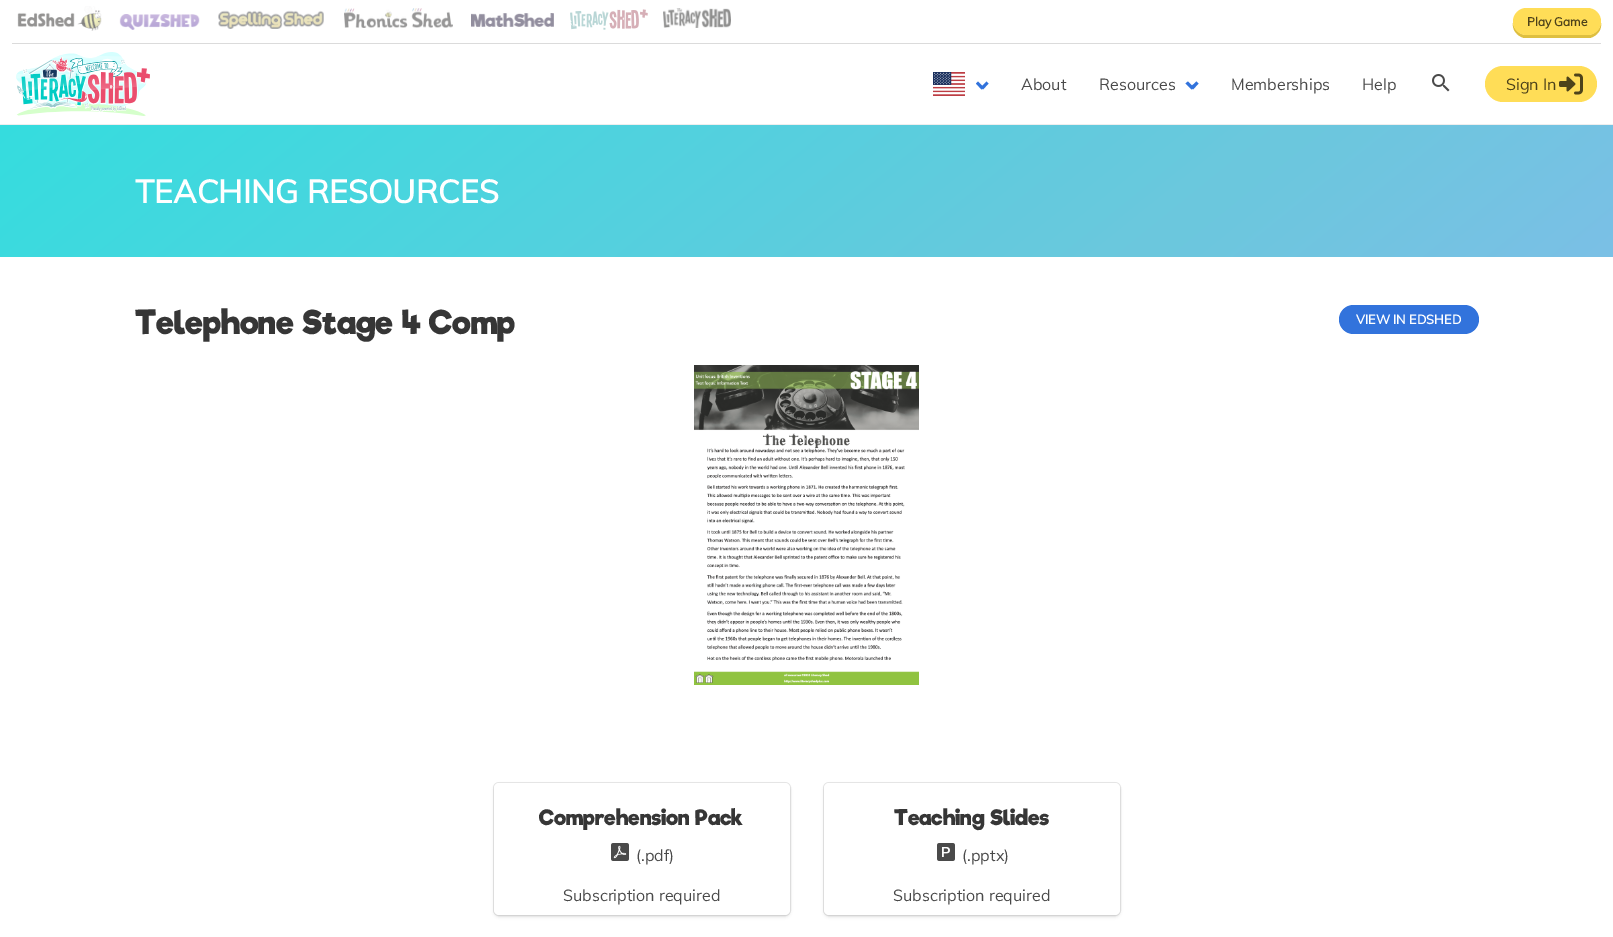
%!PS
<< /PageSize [1613 937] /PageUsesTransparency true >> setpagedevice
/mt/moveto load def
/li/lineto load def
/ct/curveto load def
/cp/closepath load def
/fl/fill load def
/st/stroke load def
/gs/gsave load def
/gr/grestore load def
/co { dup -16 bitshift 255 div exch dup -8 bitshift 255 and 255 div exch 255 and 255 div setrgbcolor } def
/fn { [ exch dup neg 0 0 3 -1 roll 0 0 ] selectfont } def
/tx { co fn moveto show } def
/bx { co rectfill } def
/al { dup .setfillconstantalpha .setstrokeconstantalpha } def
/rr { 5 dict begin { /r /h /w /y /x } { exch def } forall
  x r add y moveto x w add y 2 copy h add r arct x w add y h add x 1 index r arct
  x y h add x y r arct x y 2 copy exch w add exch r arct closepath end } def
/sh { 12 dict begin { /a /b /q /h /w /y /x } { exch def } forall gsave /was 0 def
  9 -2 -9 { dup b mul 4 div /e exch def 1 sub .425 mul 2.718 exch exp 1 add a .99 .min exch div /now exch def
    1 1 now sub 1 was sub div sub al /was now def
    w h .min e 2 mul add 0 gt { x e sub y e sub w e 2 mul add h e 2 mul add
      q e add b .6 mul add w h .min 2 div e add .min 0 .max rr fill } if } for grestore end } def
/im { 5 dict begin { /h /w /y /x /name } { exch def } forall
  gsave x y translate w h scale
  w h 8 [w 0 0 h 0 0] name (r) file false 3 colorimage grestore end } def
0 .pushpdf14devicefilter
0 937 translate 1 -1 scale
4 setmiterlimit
0 0 1613 937 16#FFFFFF bx
12 43 1589 1 16#DBDBDB bx
(media/1.raw) 17 6 85 25 im
(media/2.raw) 119 14 81 16 im
(media/3.raw) 218 10 106 19 im
(media/4.raw) 344 8 109 20 im
(media/5.raw) 471 13 83 14 im
(media/6.raw) 570 9 78 21 im
(media/7.raw) 663 8 68 20 im
16#DEBF40 co
1513 23 mt 1512 30 1517 36 1524 38 ct 1590 38 li 1597 36 1602 30 1601 23 ct 1600 30 1594 35 1588 35 ct 1526 35 li 1520 35 1514 30 1513 23 ct cp fl
16#FFDD57 co
1513 8 88 27 13.5 rr fl
0 124 1613 1 16#EEEEEE bx
(media/8.raw) 16 52 134 64 im
(media/9.raw) 933 72 32 24 im
16#3273DC co
981 87 mt 986.5 81.5 li 988.5 83.5 li 983 89.5 li cp fl
976 83.5 mt 978 81.5 li 983.5 87 li 981.5 89.5 li cp fl
1190.5 87 mt 1196.5 81.5 li 1198.5 83.5 li 1193 89.5 li cp fl
1185.5 83.5 mt 1188 81.5 li 1193.5 87 li 1191.5 89.5 li cp fl
(media/10.raw) 1432 74 18 18 im
16#FFDD57 co
1485 66 112 36 18 rr fl
(media/11.raw) 1559 73 24 22 im
gs 0 125 mt 1613 125 li 1613 257 li 0 257 li cp clip newpath
<< /ShadingType 2 /ColorSpace /DeviceRGB /Coords [455 -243 1158 625] /Extend [true true] /Function << /FunctionType 3 /Domain [0 1] /Functions [<< /FunctionType 2 /Domain [0 1] /C0 [.208 .867 .875] /C1 [.416 .784 .867] /N 1 >> << /FunctionType 2 /Domain [0 1] /C0 [.416 .784 .867] /C1 [.482 .753 .902] /N 1 >>] /Bounds [.71] /Encode [0 1 0 1] >> >> shfill gr
16#3273DC co
1339 305 140 29 14.5 rr fl
(media/12.raw) 694 365 225 320 im
16#E7E7E7 co
493.5 782.5 297 133 5.5 rr st
16#0A0A0A co
494 785 296 132 5 1.5 .1 sh
16#FFFFFF co
494 783 296 132 5 rr fl
(media/13.raw) 611 843 18 18 im
16#E7E7E7 co
823.5 782.5 297 133 5.5 rr st
16#0A0A0A co
824 785 296 132 5 1.5 .1 sh
16#FFFFFF co
824 783 296 132 5 rr fl
(media/14.raw) 937 843 18 18 im
(Play Game) 1527 26 /Muli-Bold 12 16#4D421A tx
(About) 1021 90 /Muli-Regular 16 16#4A4A4A tx
(Resources) 1099 90 /Muli-Regular 16 16#4A4A4A tx
(Memberships) 1231 90 /Muli-Regular 16 16#4A4A4A tx
(Help) 1362 90 /Muli-Regular 16 16#4A4A4A tx
(Sign In) 1506 90 /Muli-Regular 16 16#4D421A tx
(TEACHING RESOURCES) 135 203 /Muli-Bold 32 16#FFFFFF tx
(Telephone Stage 4 Comp) 135 334 /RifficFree-Bold 32 16#363636 tx
(VIEW IN EDSHED) 1356 324 /Muli-Bold 12.75 16#FFFFFF tx
(Comprehension Pack) 539 825 /RifficFree-Bold 20.75 16#363636 tx
(\(.pdf\)) 636 861 /Muli-Regular 16 16#4A4A4A tx
(Subscription required) 563 901 /Muli-Regular 16 16#4A4A4A tx
(Teaching Slides) 894 825 /RifficFree-Bold 20.75 16#363636 tx
(\(.pptx\)) 962 861 /Muli-Regular 16 16#4A4A4A tx
(Subscription required) 893 901 /Muli-Regular 16 16#4A4A4A tx
.poppdf14devicefilter showpage
